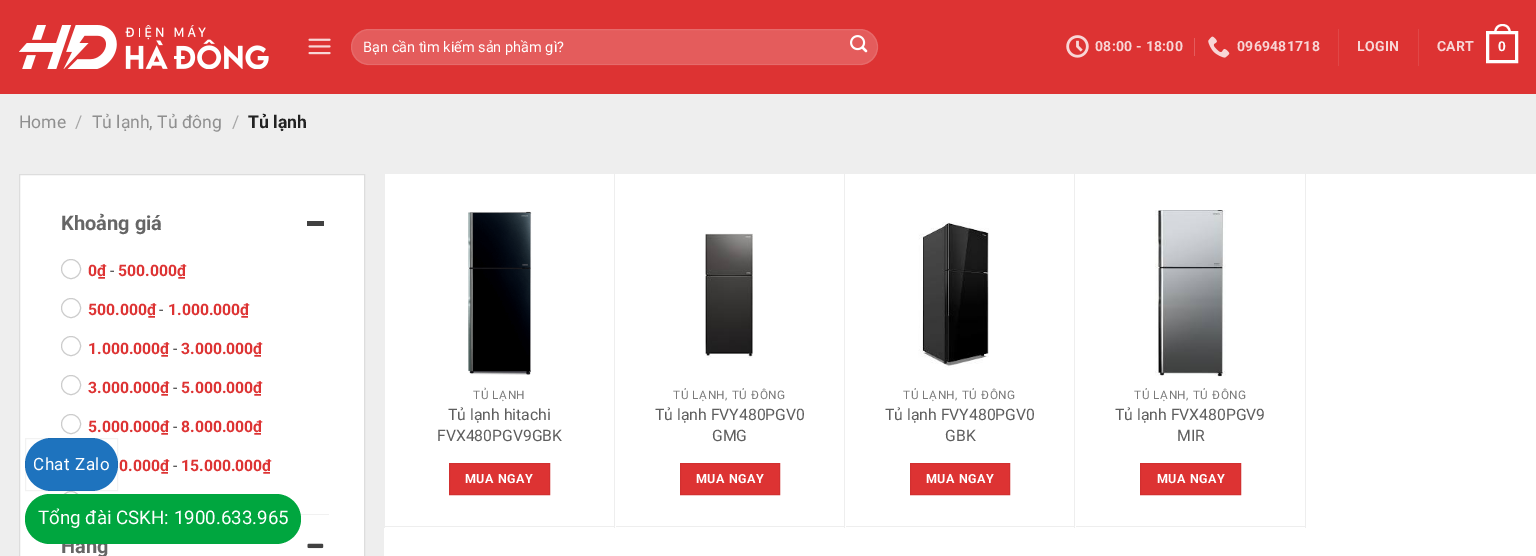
%!PS
<< /PageSize [1536 556] /PageUsesTransparency true >> setpagedevice
/mt/moveto load def
/li/lineto load def
/ct/curveto load def
/cp/closepath load def
/fl/fill load def
/st/stroke load def
/gs/gsave load def
/gr/grestore load def
/lw/setlinewidth load def
/co { dup -16 bitshift 255 div exch dup -8 bitshift 255 and 255 div exch 255 and 255 div setrgbcolor } def
/fn { [ exch dup neg 0 0 3 -1 roll 0 0 ] selectfont } def
/tx { co fn moveto show } def
/bx { co rectfill } def
/al { dup .setfillconstantalpha .setstrokeconstantalpha } def
/ci { newpath 0 360 arc closepath } def
/rr { 5 dict begin { /r /h /w /y /x } { exch def } forall
  x r add y moveto x w add y 2 copy h add r arct x w add y h add x 1 index r arct
  x y h add x y r arct x y 2 copy exch w add exch r arct closepath end } def
/im { 5 dict begin { /h /w /y /x /name } { exch def } forall
  gsave x y translate w h scale
  w h 8 [w 0 0 h 0 0] name (r) file false 3 colorimage grestore end } def
0 .pushpdf14devicefilter
0 556 translate 1 -1 scale
4 setmiterlimit
0 0 1536 556 16#EEEEEE bx
0 0 1536 94 16#DD3333 bx
(media/1.raw) 19 25 250 44 im
(media/2.raw) 308 38 23 17 im
16#E45C5C co
351 29 527 36 18 rr fl
0.09 al
16#FFFFFF co
351.5 29.5 526 35 17.5 rr st
1 al
(media/3.raw) 850 35 18 18 im
(media/4.raw) 1066 35 23 23 im
1194 38 1 18 16#E45C5C bx
(media/5.raw) 1208 36 22 22 im
1338 29 1 37 16#E04747 bx
1418 29 1 37 16#E04747 bx
16#FFFFFF co
3 lw
1487.5 32.5 29 29 rectstroke
1502.5 24 mt 1508.5 24 1511 28.5 1511 34 ct 1494 34 li 1494 28.5 1496.5 24 1502.5 24 ct cp 1502.5 26 mt 1507 26 1509 30 1509 34 ct 1496 34 li 1496 30 1498 26 1502.5 26 ct cp eofill
19.5 174.5 mt 364.5 174.5 li 364.5 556.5 li 19.5 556.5 li cp gs fl gr
16#DDDDDD co
1 lw
st
300 514 29 1 16#F1F1F1 bx
307 221 17 5 16#414141 bx
16#CCCCCC co
71 269 9.5 ci st
71 308 9.5 ci st
71 346 9.5 ci st
71 385 9.5 ci st
71 424 9.5 ci st
71 501 9.5 ci st
(media/6.raw) 307 543 17 6 im
384 174 1152 382 16#FFFFFF bx
614 174 1 354 16#EEEEEE bx
384 526 231 1 16#EEEEEE bx
384 174 1 354 16#EEEEEE bx
(media/7.raw) 468 211 64 164 im
16#DD3333 co
449.5 463.5 mt 549.5 463.5 li 549.5 494.5 li 449.5 494.5 li cp gs fl gr
16#D23030 co
st
844 174 1 354 16#EEEEEE bx
615 526 230 1 16#EEEEEE bx
615 526 1 2 16#FFFFFF bx
(media/8.raw) 705 233 48 125 im
16#DD3333 co
680.5 463.5 mt 779.5 463.5 li 779.5 494.5 li 680.5 494.5 li cp gs fl gr
16#D23030 co
st
1074 174 1 354 16#EEEEEE bx
845 526 230 1 16#EEEEEE bx
845 526 1 2 16#FFFFFF bx
(media/9.raw) 918 222 71 148 im
16#DD3333 co
910.5 463.5 mt 1009.5 463.5 li 1009.5 494.5 li 910.5 494.5 li cp gs fl gr
16#D23030 co
st
1305 174 1 354 16#EEEEEE bx
1075 526 231 1 16#EEEEEE bx
1075 526 1 2 16#FFFFFF bx
(media/10.raw) 1155 210 71 167 im
16#DD3333 co
1140.5 463.5 mt 1240.5 463.5 li 1240.5 494.5 li 1140.5 494.5 li cp gs fl gr
16#D23030 co
st
16#1E73BE co
25 438 93 53 26.5 rr fl
0.05 al
16#000000 co
25.5 438.5 92 52 rectstroke
1 al
(Bạn cần tìm kiếm sản phầm gì?) 363 52 /Roboto-Regular 14.5 16#FFFFFF tx
/Roboto-Bold 14 fn
16#F8D6D6 co
1095 51 mt .25 0 (08:00 - 18:00) ashow
1237 51 mt .25 0 (0969481718) ashow
1357 51 mt .25 0 (LOGIN) ashow
1437 51 mt .25 0 (CART) ashow
/LiberationSans-Bold 14 fn
16#FFFFFF co
1498 51 mt .25 0 (0) ashow
(Home) 19 128 /Roboto-Regular 17.5 16#8F8F8F tx
(/) 75 128 /Roboto-Regular 17.5 16#A7A7A7 tx
(Tủ lạnh, Tủ đông) 92 128 /Roboto-Regular 17.5 16#8F8F8F tx
(/) 232 128 /Roboto-Regular 17.5 16#A7A7A7 tx
(Tủ lạnh) 248 128 /Roboto-Bold 17.5 16#222222 tx
(Khoảng giá) 61 230 /Roboto-Bold 20 16#666666 tx
(0₫) 88 276 /Roboto-Bold 15.75 16#DD3333 tx
(-) 110 276 /Roboto-Regular 15.75 16#222222 tx
(500.000₫) 118 276 /Roboto-Bold 15.75 16#DD3333 tx
(500.000₫) 88 315 /Roboto-Bold 15.75 16#DD3333 tx
(-) 159 315 /Roboto-Regular 15.75 16#222222 tx
(1.000.000₫) 168 315 /Roboto-Bold 15.75 16#DD3333 tx
(1.000.000₫) 88 354 /Roboto-Bold 15.75 16#DD3333 tx
(-) 173 354 /Roboto-Regular 15.75 16#222222 tx
(3.000.000₫) 181 354 /Roboto-Bold 15.75 16#DD3333 tx
(3.000.000₫) 88 393 /Roboto-Bold 15.75 16#DD3333 tx
(-) 173 393 /Roboto-Regular 15.75 16#222222 tx
(5.000.000₫) 181 393 /Roboto-Bold 15.75 16#DD3333 tx
(5.000.000₫) 88 432 /Roboto-Bold 15.75 16#DD3333 tx
(-) 173 432 /Roboto-Regular 15.75 16#222222 tx
(8.000.000₫) 181 432 /Roboto-Bold 15.75 16#DD3333 tx
(0.000₫) 119 471 /Roboto-Bold 15.75 16#DD3333 tx
(-) 173 471 /Roboto-Regular 15.75 16#222222 tx
(15.000.000₫) 181 471 /Roboto-Bold 15.75 16#DD3333 tx
(Hãng) 61 553 /Roboto-Bold 20 16#666666 tx
/Roboto-Regular 11.75 fn
16#7A7A7A co
473 399 mt .6 0 (TỦ LẠNH) ashow
(Tủ lạnh hitachi) 448 420 /Roboto-Regular 15.75 16#5E5E5E tx
(FVX480PGV9GBK) 437 441 /Roboto-Regular 15.75 16#5E5E5E tx
/Roboto-Bold 12.5 fn
16#FFFFFF co
465 483 mt .5 0 (MUA NGAY) ashow
gs
646 388 168 15 rectclip
/Roboto-Regular 11.75 fn
16#7A7A7A co
673 399 mt .6 0 (TỦ LẠNH, TỦ ĐÔNG) ashow
gr
(Tủ lạnh FVY480PGV0) 655 420 /Roboto-Regular 15.75 16#5E5E5E tx
(GMG) 712 441 /Roboto-Regular 15.75 16#5E5E5E tx
/Roboto-Bold 12.5 fn
16#FFFFFF co
696 483 mt .5 0 (MUA NGAY) ashow
gs
876 388 168 15 rectclip
/Roboto-Regular 11.75 fn
16#7A7A7A co
903 399 mt .6 0 (TỦ LẠNH, TỦ ĐÔNG) ashow
gr
(Tủ lạnh FVY480PGV0) 885 420 /Roboto-Regular 15.75 16#5E5E5E tx
(GBK) 945 441 /Roboto-Regular 15.75 16#5E5E5E tx
/Roboto-Bold 12.5 fn
16#FFFFFF co
926 483 mt .5 0 (MUA NGAY) ashow
gs
1106 388 169 15 rectclip
/Roboto-Regular 11.75 fn
16#7A7A7A co
1134 399 mt .6 0 (TỦ LẠNH, TỦ ĐÔNG) ashow
gr
(Tủ lạnh FVX480PGV9) 1115 420 /Roboto-Regular 15.75 16#5E5E5E tx
(MIR) 1177 441 /Roboto-Regular 15.75 16#5E5E5E tx
/Roboto-Bold 12.5 fn
16#FFFFFF co
1157 483 mt .5 0 (MUA NGAY) ashow
/Roboto-Regular 17 fn
33 470 mt .5 0 (Chat Zalo) ashow
16#00A63F co
25 494 276 50 25 rr fl
(Tổng đài CSKH: 1900.633.965) 38 524 /Roboto-Regular 18.75 16#FFFFFF tx
.poppdf14devicefilter showpage
